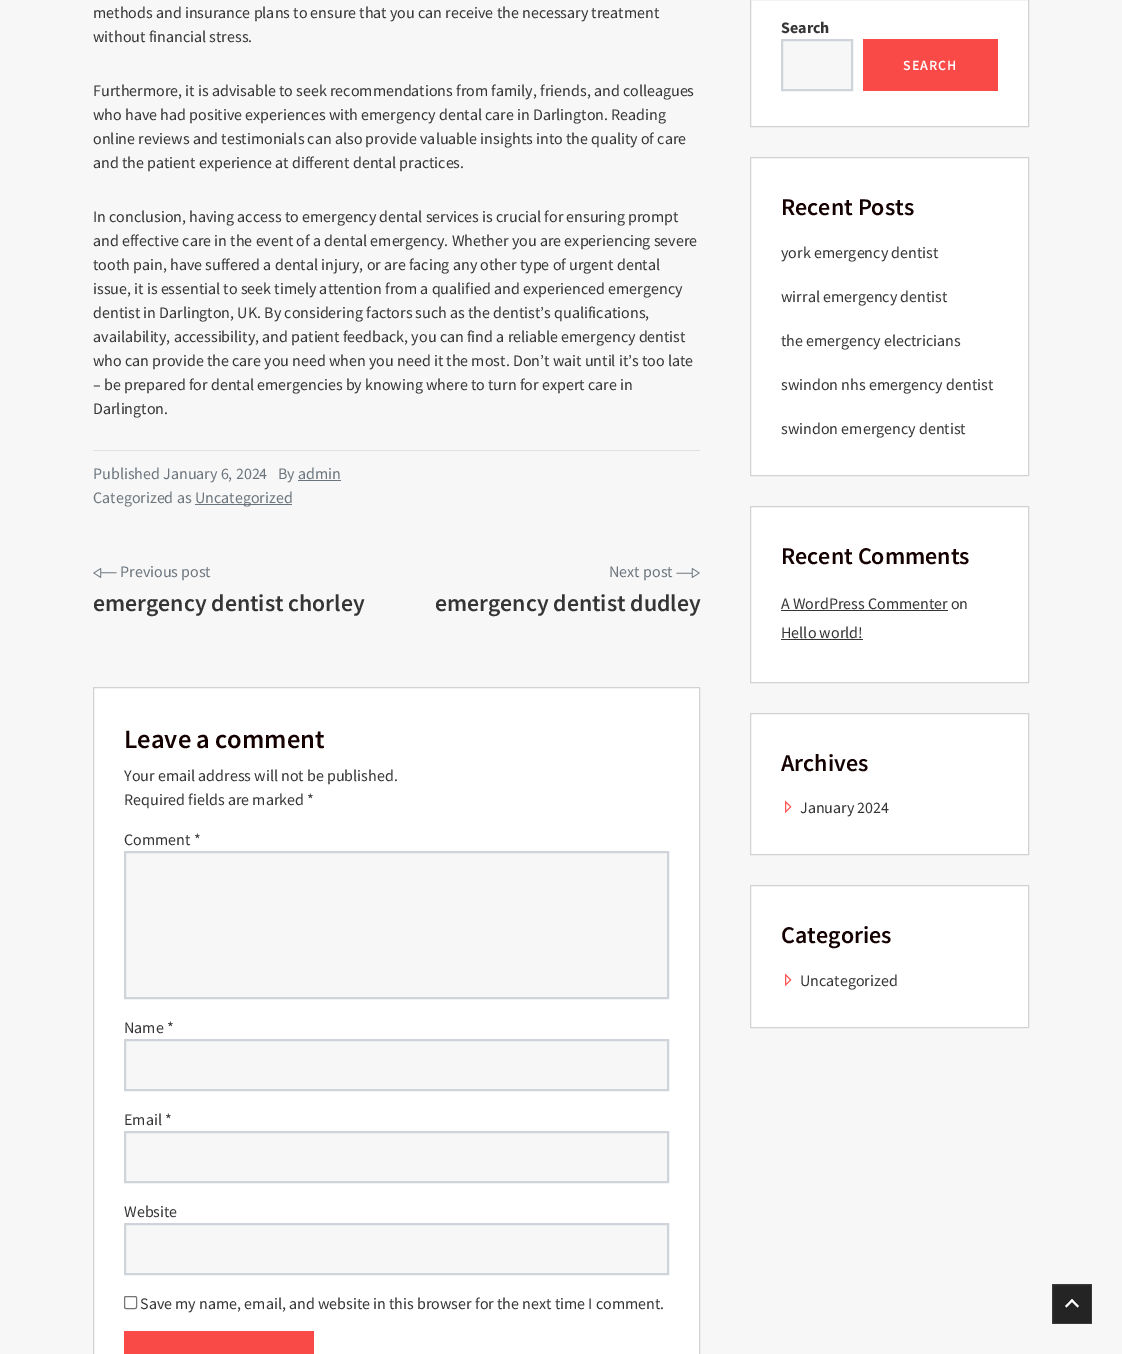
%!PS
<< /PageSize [1122 1354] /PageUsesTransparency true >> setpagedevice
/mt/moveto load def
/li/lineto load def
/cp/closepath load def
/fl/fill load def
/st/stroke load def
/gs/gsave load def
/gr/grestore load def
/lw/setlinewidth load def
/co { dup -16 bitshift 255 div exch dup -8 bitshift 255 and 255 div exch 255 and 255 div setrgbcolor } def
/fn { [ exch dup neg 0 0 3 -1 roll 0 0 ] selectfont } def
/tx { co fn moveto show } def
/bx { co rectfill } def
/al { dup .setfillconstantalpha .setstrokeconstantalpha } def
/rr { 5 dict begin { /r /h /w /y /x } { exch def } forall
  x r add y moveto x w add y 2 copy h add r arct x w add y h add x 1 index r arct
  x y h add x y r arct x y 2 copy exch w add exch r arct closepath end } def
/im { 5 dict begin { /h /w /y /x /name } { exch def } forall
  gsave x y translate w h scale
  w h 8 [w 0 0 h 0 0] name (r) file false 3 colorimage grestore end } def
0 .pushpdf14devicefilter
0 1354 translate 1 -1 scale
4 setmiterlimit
0 0 1122 1354 16#F7F7F7 bx
93 450 607 1 16#DEE2E6 bx
298 480 43 1 16#6C757D bx
195 504 97 1 16#6C757D bx
(media/1.raw) 93 568 24 10 im
(media/2.raw) 676 568 24 10 im
16#FFFFFF co
93.5 687.5 mt 699.5 687.5 li 699.5 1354.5 li 93.5 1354.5 li cp gs fl gr
16#D2D2D2 co
st
16#F7F7F7 co
125 852 mt 668 852 li 668 998 li 125 998 li cp gs fl gr
16#CED4DA co
2 lw
st
16#F7F7F7 co
125 1040 mt 668 1040 li 668 1090 li 125 1090 li cp gs fl gr
16#CED4DA co
st
16#F7F7F7 co
125 1132 mt 668 1132 li 668 1182 li 125 1182 li cp gs fl gr
16#CED4DA co
st
16#F7F7F7 co
125 1224 mt 668 1224 li 668 1274 li 125 1274 li cp gs fl gr
16#CED4DA co
st
16#767676 co
1 lw
124.5 1296.5 12 12 1.5 rr st
124 1331 190 23 16#FA4A47 bx
16#FFFFFF co
750.5 -.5 mt 1028.5 -.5 li 1028.5 126.5 li 750.5 126.5 li cp gs fl gr
16#D2D2D2 co
st
16#F7F7F7 co
782 40 mt 852 40 li 852 90 li 782 90 li cp gs fl gr
16#CED4DA co
2 lw
st
863 39 135 52 16#FA4A47 bx
16#FFFFFF co
750.5 157.5 mt 1028.5 157.5 li 1028.5 475.5 li 750.5 475.5 li cp gs fl gr
16#D2D2D2 co
1 lw
st
16#FFFFFF co
750.5 506.5 mt 1028.5 506.5 li 1028.5 682.5 li 750.5 682.5 li cp gs fl gr
16#D2D2D2 co
st
781 610 167 1 16#353535 bx
781 639 82 1 16#353535 bx
16#FFFFFF co
750.5 713.5 mt 1028.5 713.5 li 1028.5 854.5 li 750.5 854.5 li cp gs fl gr
16#D2D2D2 co
st
(media/3.raw) 785 800 7 14 im
16#FFFFFF co
750.5 885.5 mt 1028.5 885.5 li 1028.5 1027.5 li 750.5 1027.5 li cp gs fl gr
16#D2D2D2 co
st
(media/3.raw) 785 973 7 14 im
16#242424 co
1052 1284 40 40 1 rr fl
0.1 al
16#FFFFFF co
1052.5 1284.5 39 39 rectstroke
1 al
1066.5 1307.5 mt 1065 1306 li 1072 1299 li 1073.5 1300.5 li cp fl
1077.5 1307.5 mt 1070.5 1300.5 li 1072 1299 li 1079 1306 li cp fl
(methods and insurance plans to ensure that you can receive the necessary treatment) 93 18 /SourceSansPro-Regular 16 16#353535 tx
(without financial stress.) 93 42 /SourceSansPro-Regular 16 16#353535 tx
(Furthermore, it is advisable to seek recommendations from family, friends, and colleagues) 93 96 /SourceSansPro-Regular 16 16#353535 tx
(who have had positive experiences with emergency dental care in Darlington. Reading) 93 120 /SourceSansPro-Regular 16 16#353535 tx
(online reviews and testimonials can also provide valuable insights into the quality of care) 93 144 /SourceSansPro-Regular 16 16#353535 tx
(and the patient experience at different dental practices.) 93 168 /SourceSansPro-Regular 16 16#353535 tx
(In conclusion, having access to emergency dental services is crucial for ensuring prompt) 93 222 /SourceSansPro-Regular 16 16#353535 tx
(and effective care in the event of a dental emergency. Whether you are experiencing severe) 93 246 /SourceSansPro-Regular 16 16#353535 tx
(tooth pain, have suffered a dental injury, or are facing any other type of urgent dental) 93 270 /SourceSansPro-Regular 16 16#353535 tx
(issue, it is essential to seek timely attention from a qualified and experienced emergency) 93 294 /SourceSansPro-Regular 16 16#353535 tx
(dentist in Darlington, UK. By considering factors such as the dentist’s qualifications,) 93 318 /SourceSansPro-Regular 16 16#353535 tx
(availability, accessibility, and patient feedback, you can find a reliable emergency dentist) 93 342 /SourceSansPro-Regular 16 16#353535 tx
(who can provide the care you need when you need it the most. Don’t wait until it’s too late) 93 366 /SourceSansPro-Regular 16 16#353535 tx
(– be prepared for dental emergencies by knowing where to turn for expert care in) 93 390 /SourceSansPro-Regular 16 16#353535 tx
(Darlington.) 93 414 /SourceSansPro-Regular 16 16#353535 tx
(Published January 6, 2024) 93 479 /SourceSansPro-Regular 16 16#6C757D tx
(By admin) 278 479 /SourceSansPro-Regular 16 16#6C757D tx
(Categorized as) 93 503 /SourceSansPro-Regular 16 16#6C757D tx
(Uncategorized) 195 503 /SourceSansPro-Regular 16 16#6C757D tx
(Previous post) 120 577 /SourceSansPro-Regular 16 16#6C757D tx
(emergency dentist chorley) 93 611 /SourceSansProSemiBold-SemiBold 23.75 16#353535 tx
(Next post) 609 577 /SourceSansPro-Regular 16 16#6C757D tx
(emergency dentist dudley) 435 611 /SourceSansProSemiBold-SemiBold 23.75 16#353535 tx
(Leave a comment) 124 748 /SourceSansProSemiBold-SemiBold 26.5 16#140000 tx
(Your email address will not be published.) 124 781 /SourceSansPro-Regular 16 16#353535 tx
(Required fields are marked *) 124 805 /SourceSansPro-Regular 16 16#353535 tx
(Comment *) 124 845 /SourceSansPro-Regular 16 16#353535 tx
(Name *) 124 1033 /SourceSansPro-Regular 16 16#353535 tx
(Email *) 124 1125 /SourceSansPro-Regular 16 16#353535 tx
(Website) 124 1217 /SourceSansPro-Regular 16 16#353535 tx
(Save my name, email, and website in this browser for the next time I comment.) 140 1309 /SourceSansPro-Regular 16 16#353535 tx
(Search) 781 33 /SourceSansPro-Bold 16 16#353535 tx
/SourceSansProSemiBold-SemiBold 14 fn
16#FFFFFF co
903 70 mt 1 0 (SEARCH) ashow
(Recent Posts) 781 215 /SourceSansProSemiBold-SemiBold 24 16#140000 tx
(york emergency dentist) 781 258 /SourceSansPro-Regular 16 16#353535 tx
(wirral emergency dentist) 781 302 /SourceSansPro-Regular 16 16#353535 tx
(the emergency electricians) 781 346 /SourceSansPro-Regular 16 16#353535 tx
(swindon nhs emergency dentist) 781 390 /SourceSansPro-Regular 16 16#353535 tx
(swindon emergency dentist) 781 434 /SourceSansPro-Regular 16 16#353535 tx
(Recent Comments) 781 564 /SourceSansProSemiBold-SemiBold 24 16#140000 tx
(A WordPress Commenter on) 781 609 /SourceSansPro-Regular 16 16#353535 tx
(Hello world!) 781 638 /SourceSansPro-Regular 16 16#353535 tx
(Archives) 781 771 /SourceSansProSemiBold-SemiBold 24 16#140000 tx
(January 2024) 800 813 /SourceSansPro-Regular 16 16#353535 tx
(Categories) 781 943 /SourceSansProSemiBold-SemiBold 24 16#140000 tx
(Uncategorized) 800 986 /SourceSansPro-Regular 16 16#353535 tx
.poppdf14devicefilter showpage
